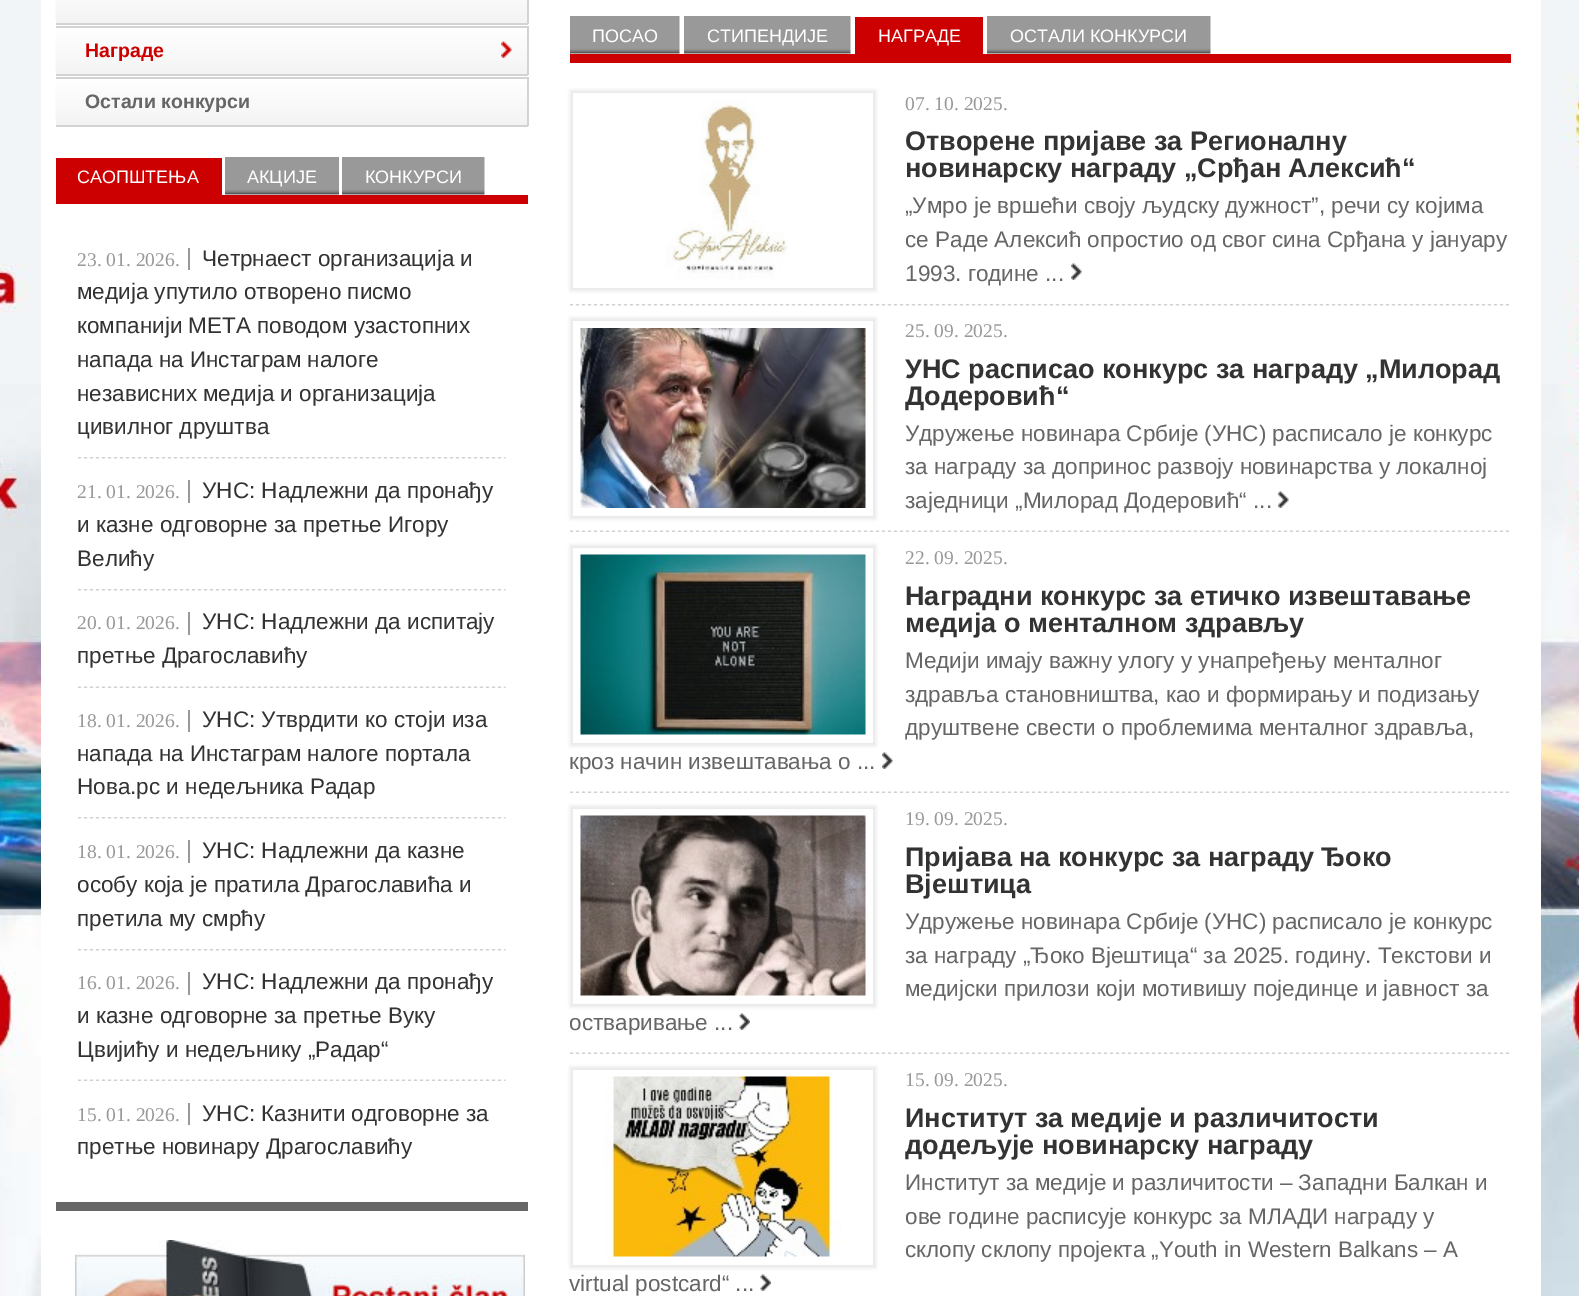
%!PS
<< /PageSize [1579 1296] /PageUsesTransparency true >> setpagedevice
/mt/moveto load def
/li/lineto load def
/cp/closepath load def
/gs/gsave load def
/gr/grestore load def
/co { dup -16 bitshift 255 div exch dup -8 bitshift 255 and 255 div exch 255 and 255 div setrgbcolor } def
/fn { [ exch dup neg 0 0 3 -1 roll 0 0 ] selectfont } def
/tx { co fn moveto show } def
/bx { co rectfill } def
/al { dup .setfillconstantalpha .setstrokeconstantalpha } def
/rr { 5 dict begin { /r /h /w /y /x } { exch def } forall
  x r add y moveto x w add y 2 copy h add r arct x w add y h add x 1 index r arct
  x y h add x y r arct x y 2 copy exch w add exch r arct closepath end } def
/sh { 12 dict begin { /a /b /q /h /w /y /x } { exch def } forall gsave /was 0 def
  9 -2 -9 { dup b mul 4 div /e exch def 1 sub .425 mul 2.718 exch exp 1 add a .99 .min exch div /now exch def
    1 1 now sub 1 was sub div sub al /was now def
    w h .min e 2 mul add 0 gt { x e sub y e sub w e 2 mul add h e 2 mul add
      q e add b .6 mul add w h .min 2 div e add .min 0 .max rr fill } if } for grestore end } def
/im { 5 dict begin { /h /w /y /x /name } { exch def } forall
  gsave x y translate w h scale
  w h 8 [w 0 0 h 0 0] name (r) file false 3 colorimage grestore end } def
0 .pushpdf14devicefilter
0 1296 translate 1 -1 scale
4 setmiterlimit
0 0 1579 1296 16#FFFFFF bx
(media/1.raw) 0 0 41 1296 im
56 20 471 3 16#F3F3F3 bx
(media/2.raw) 55 0 472 20 im
527 0 2 24 16#D3D3D3 bx
56 23 472 2 16#D3D3D3 bx
56 71 471 3 16#F3F3F3 bx
(media/3.raw) 55 26 472 45 im
56 26 472 2 16#D3D3D3 bx
527 26 2 49 16#D3D3D3 bx
56 74 472 2 16#D3D3D3 bx
(media/4.raw) 501 41 11 17 im
56 122 471 3 16#F3F3F3 bx
(media/3.raw) 55 77 472 45 im
56 77 472 2 16#D3D3D3 bx
527 77 2 49 16#D3D3D3 bx
56 125 472 2 16#D3D3D3 bx
56 195 472 9 16#CC0000 bx
56 158 166 37 16#CC0000 bx
(media/5.raw) 225 157 114 38 im
(media/6.raw) 342 157 143 38 im
56 1202 472 9 16#666666 bx
(media/7.raw) 78 457 428 2 im
188 248 2 22 16#999999 bx
(media/7.raw) 78 589 428 2 im
188 480 2 23 16#999999 bx
(media/8.raw) 78 686 428 2 im
188 612 2 23 16#999999 bx
(media/7.raw) 78 817 428 2 im
188 710 2 22 16#999999 bx
(media/7.raw) 78 949 428 2 im
188 840 2 23 16#999999 bx
(media/8.raw) 78 1079 428 2 im
188 972 2 23 16#999999 bx
188 1103 2 22 16#999999 bx
(media/9.raw) 75 1240 450 56 im
570 54 941 9 16#CC0000 bx
(media/10.raw) 570 16 110 38 im
(media/11.raw) 684 16 167 38 im
855 17 128 37 16#CC0000 bx
(media/12.raw) 987 16 224 38 im
(media/13.raw) 570 304 940 2 im
gs
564 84 mt 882 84 li 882 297 li 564 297 li cp 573 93 mt 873 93 li 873 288 li 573 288 li cp eoclip newpath
16#D4D4D4 co
570 90 306 201 0 1.5 .5 sh
gr
(media/14.raw) 665 100 123 180 im
(media/15.raw) 1071 263 11 17 im
(media/16.raw) 570 530 940 2 im
gs
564 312 mt 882 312 li 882 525 li 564 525 li cp 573 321 mt 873 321 li 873 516 li 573 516 li cp eoclip newpath
16#D4D4D4 co
570 318 306 201 0 1.5 .5 sh
gr
(media/17.raw) 580 328 286 180 im
(media/18.raw) 1278 491 11 17 im
(media/16.raw) 570 791 940 2 im
gs
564 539 mt 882 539 li 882 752 li 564 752 li cp 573 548 mt 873 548 li 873 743 li 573 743 li cp eoclip newpath
16#D4D4D4 co
570 545 306 201 0 1.5 .5 sh
gr
(media/19.raw) 580 554 286 181 im
(media/18.raw) 882 752 11 17 im
(media/16.raw) 570 1052 940 2 im
gs
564 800 mt 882 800 li 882 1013 li 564 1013 li cp 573 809 mt 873 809 li 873 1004 li 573 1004 li cp eoclip newpath
16#D4D4D4 co
570 806 306 201 0 1.5 .5 sh
gr
(media/20.raw) 580 815 286 181 im
(media/21.raw) 739 1013 11 17 im
gs
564 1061 mt 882 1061 li 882 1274 li 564 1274 li cp 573 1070 mt 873 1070 li 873 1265 li 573 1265 li cp eoclip newpath
16#D4D4D4 co
570 1067 306 201 0 1.5 .5 sh
gr
(media/22.raw) 604 1076 237 181 im
(media/23.raw) 760 1274 11 17 im
(media/24.raw) 1541 0 38 1296 im
(Награде) 85 57 /LiberationSans-Bold 19.5 16#CC0000 tx
(Остали конкурси) 85 108 /LiberationSans-Bold 19.5 16#666666 tx
(САОПШТЕЊА) 77 183 /LiberationSans-Regular 18 16#FFFFFF tx
(АКЦИЈЕ) 247 183 /LiberationSans-Regular 18 16#FFFFFF tx
(КОНКУРСИ) 365 183 /LiberationSans-Regular 18 16#FFFFFF tx
(23. 01. 2026.) 77 266 /LiberationSerif-Regular 19.5 16#999999 tx
(Четрнаест организација и) 202 266 /LiberationSans-Regular 22.5 16#333333 tx
(медија упутило отворено писмо) 77 299 /LiberationSans-Regular 22.5 16#333333 tx
(компанији МЕТА поводом узастопних) 77 333 /LiberationSans-Regular 22.5 16#333333 tx
(напада на Инстаграм налоге) 77 367 /LiberationSans-Regular 22.5 16#333333 tx
(независних медија и организација) 77 401 /LiberationSans-Regular 22.5 16#333333 tx
(цивилног друштва) 77 434 /LiberationSans-Regular 22.5 16#333333 tx
(21. 01. 2026.) 77 498 /LiberationSerif-Regular 19.5 16#999999 tx
(УНС: Надлежни да пронађу) 202 498 /LiberationSans-Regular 22.5 16#333333 tx
(и казне одговорне за претње Игору) 77 532 /LiberationSans-Regular 22.5 16#333333 tx
(Велићу) 77 566 /LiberationSans-Regular 22.5 16#333333 tx
(20. 01. 2026.) 77 629 /LiberationSerif-Regular 19.5 16#999999 tx
(УНС: Надлежни да испитају) 202 629 /LiberationSans-Regular 22.5 16#333333 tx
(претње Драгославићу) 77 663 /LiberationSans-Regular 22.5 16#333333 tx
(18. 01. 2026.) 77 727 /LiberationSerif-Regular 19.5 16#999999 tx
(УНС: Утврдити ко стоји иза) 202 727 /LiberationSans-Regular 22.5 16#333333 tx
(напада на Инстаграм налоге портала) 77 761 /LiberationSans-Regular 22.5 16#333333 tx
(Нова.рс и недељника Радар) 77 794 /LiberationSans-Regular 22.5 16#333333 tx
(18. 01. 2026.) 77 858 /LiberationSerif-Regular 19.5 16#999999 tx
(УНС: Надлежни да казне) 202 858 /LiberationSans-Regular 22.5 16#333333 tx
(особу која је пратила Драгославића и) 77 892 /LiberationSans-Regular 22.5 16#333333 tx
(претила му смрћу) 77 926 /LiberationSans-Regular 22.5 16#333333 tx
(16. 01. 2026.) 77 989 /LiberationSerif-Regular 19.5 16#999999 tx
(УНС: Надлежни да пронађу) 202 989 /LiberationSans-Regular 22.5 16#333333 tx
(и казне одговорне за претње Вуку) 77 1023 /LiberationSans-Regular 22.5 16#333333 tx
(Цвијићу и недељнику „Радар“) 77 1057 /LiberationSans-Regular 22.5 16#333333 tx
(15. 01. 2026.) 77 1121 /LiberationSerif-Regular 19.5 16#999999 tx
(УНС: Казнити одговорне за) 202 1121 /LiberationSans-Regular 22.5 16#333333 tx
(претње новинару Драгославићу) 77 1154 /LiberationSans-Regular 22.5 16#333333 tx
(ПОСАО) 592 42 /LiberationSans-Regular 18 16#FFFFFF tx
(СТИПЕНДИЈЕ) 707 42 /LiberationSans-Regular 18 16#FFFFFF tx
(НАГРАДЕ) 878 42 /LiberationSans-Regular 18 16#FFFFFF tx
(ОСТАЛИ КОНКУРСИ) 1010 42 /LiberationSans-Regular 18 16#FFFFFF tx
(07. 10. 2025.) 905 110 /LiberationSerif-Regular 19.5 16#999999 tx
(Отворене пријаве за Регионалну) 905 150 /LiberationSans-Bold 27 16#333333 tx
(новинарску награду „Срђан Алексић“) 905 177 /LiberationSans-Bold 27 16#333333 tx
(„Умро је вршећи своју људску дужност”, речи су којима) 905 213 /LiberationSans-Regular 22.5 16#666666 tx
(се Раде Алексић опростио од свог сина Срђана у јануару) 905 247 /LiberationSans-Regular 22.5 16#666666 tx
(1993. године ...) 905 281 /LiberationSans-Regular 22.5 16#666666 tx
(25. 09. 2025.) 905 337 /LiberationSerif-Regular 19.5 16#999999 tx
(УНС расписао конкурс за награду „Милорад) 905 378 /LiberationSans-Bold 27 16#333333 tx
(Додеровић“) 905 405 /LiberationSans-Bold 27 16#333333 tx
(Удружење новинара Србије \(УНС\) расписало је конкурс) 905 441 /LiberationSans-Regular 22.5 16#666666 tx
(за награду за допринос развоју новинарства у локалној) 905 474 /LiberationSans-Regular 22.5 16#666666 tx
(заједници „Милорад Додеровић“ ...) 905 508 /LiberationSans-Regular 22.5 16#666666 tx
(22. 09. 2025.) 905 564 /LiberationSerif-Regular 19.5 16#999999 tx
(Наградни конкурс за етичко извештавање) 905 605 /LiberationSans-Bold 27 16#333333 tx
(медија о менталном здрављу) 905 632 /LiberationSans-Bold 27 16#333333 tx
(Медији имају важну улогу у унапређењу менталног) 905 668 /LiberationSans-Regular 22.5 16#666666 tx
(здравља становништва, као и формирању и подизању) 905 702 /LiberationSans-Regular 22.5 16#666666 tx
(друштвене свести о проблемима менталног здравља,) 905 735 /LiberationSans-Regular 22.5 16#666666 tx
(кроз начин извештавања о ...) 569 769 /LiberationSans-Regular 22.5 16#666666 tx
(19. 09. 2025.) 905 825 /LiberationSerif-Regular 19.5 16#999999 tx
(Пријава на конкурс за награду Ђоко) 905 866 /LiberationSans-Bold 27 16#333333 tx
(Вјештица) 905 893 /LiberationSans-Bold 27 16#333333 tx
(Удружење новинара Србије \(УНС\) расписало је конкурс) 905 929 /LiberationSans-Regular 22.5 16#666666 tx
(за награду „Ђоко Вјештица“ за 2025. годину. Текстови и) 905 963 /LiberationSans-Regular 22.5 16#666666 tx
(медијски прилози који мотивишу појединце и јавност за) 905 996 /LiberationSans-Regular 22.5 16#666666 tx
(остваривање ...) 569 1030 /LiberationSans-Regular 22.5 16#666666 tx
(15. 09. 2025.) 905 1086 /LiberationSerif-Regular 19.5 16#999999 tx
(Институт за медије и различитости) 905 1127 /LiberationSans-Bold 27 16#333333 tx
(додељује новинарску награду) 905 1154 /LiberationSans-Bold 27 16#333333 tx
(Институт за медије и различитости – Западни Балкан и) 905 1190 /LiberationSans-Regular 22.5 16#666666 tx
(ове године расписује конкурс за МЛАДИ награду у) 905 1224 /LiberationSans-Regular 22.5 16#666666 tx
(склопу склопу пројекта „Youth in Western Balkans – A) 905 1257 /LiberationSans-Regular 22.5 16#666666 tx
(virtual postcard“ ...) 569 1291 /LiberationSans-Regular 22.5 16#666666 tx
.poppdf14devicefilter showpage
